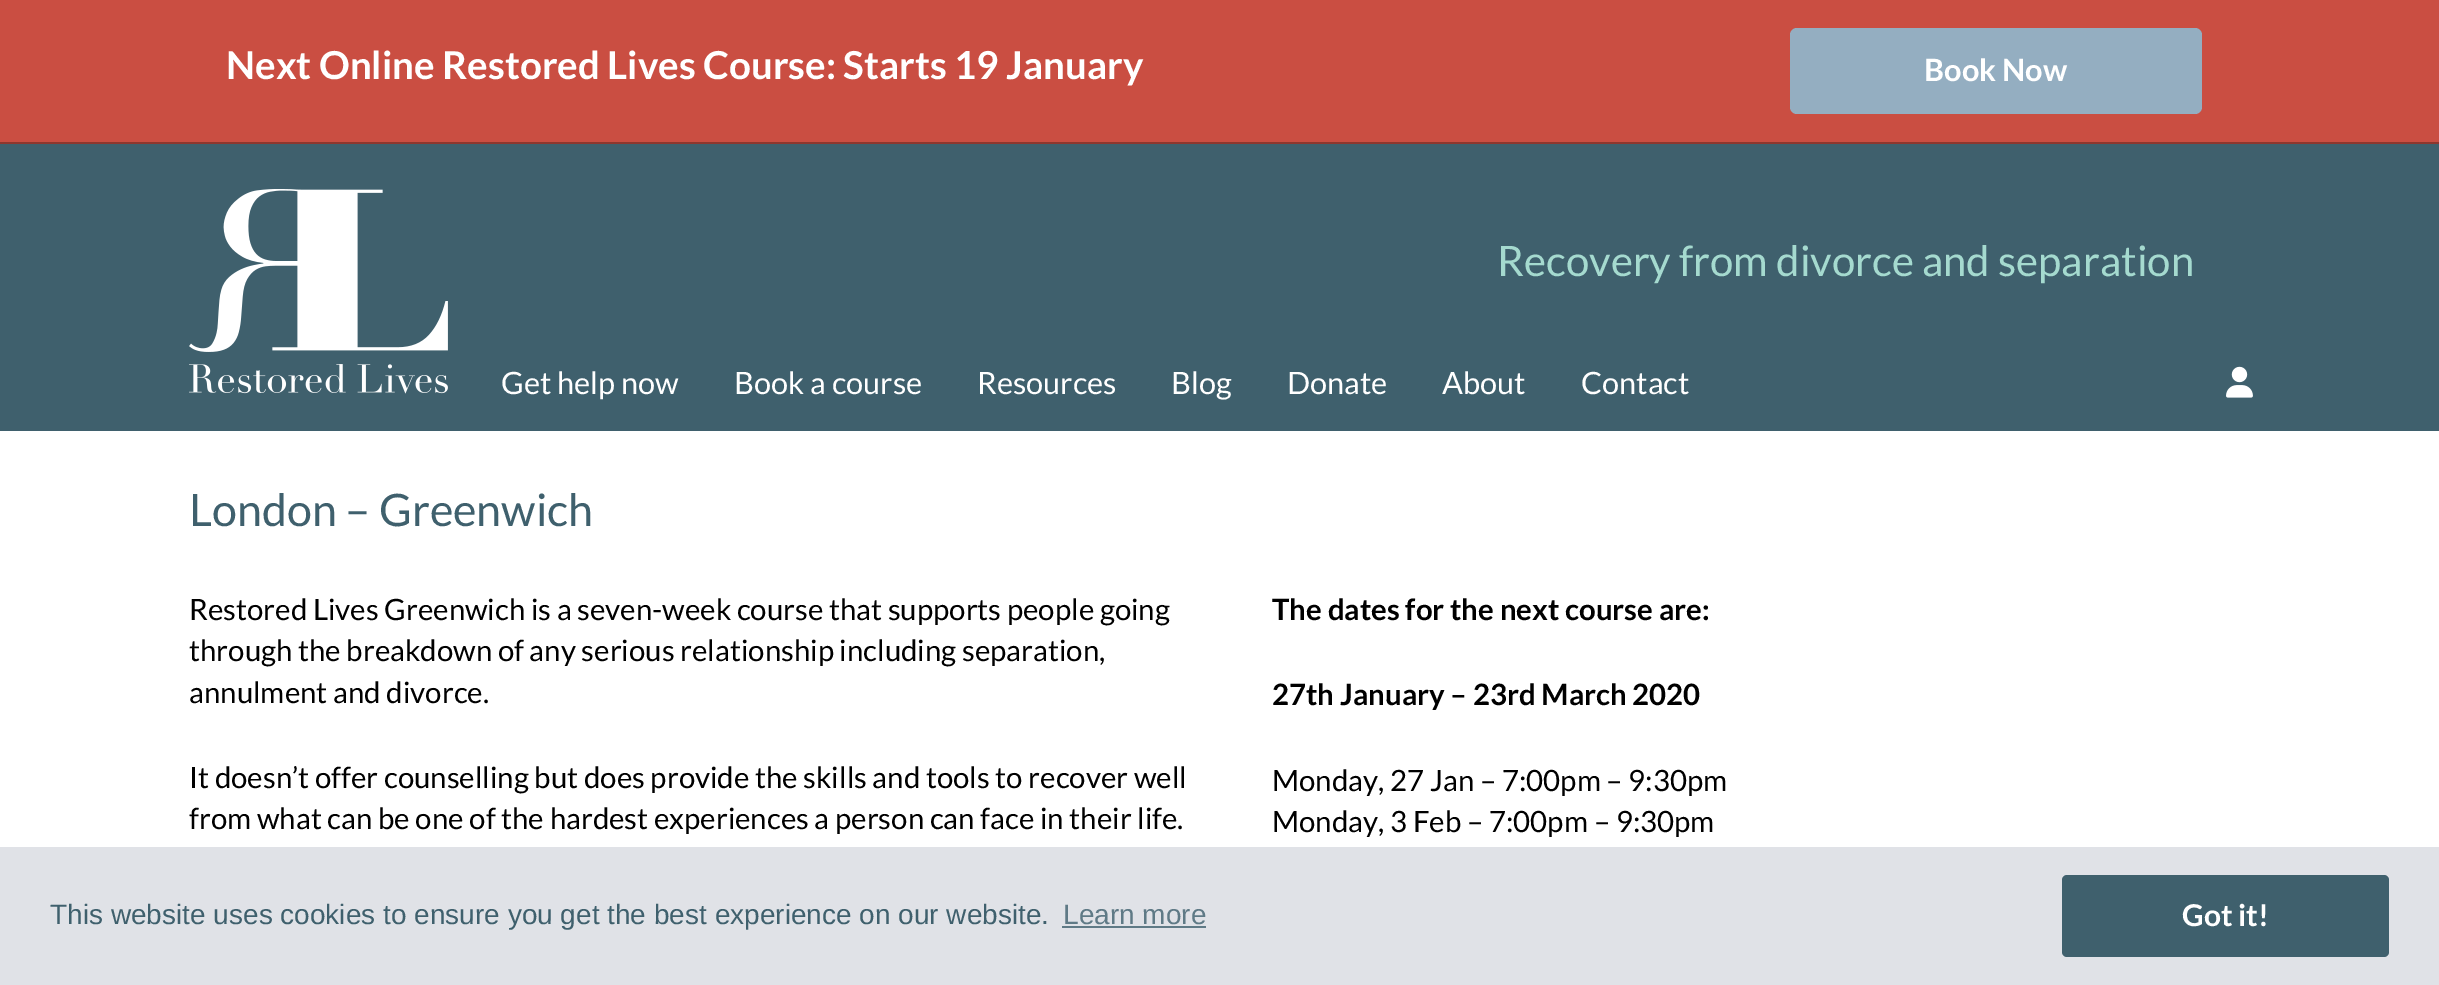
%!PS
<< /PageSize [2439 985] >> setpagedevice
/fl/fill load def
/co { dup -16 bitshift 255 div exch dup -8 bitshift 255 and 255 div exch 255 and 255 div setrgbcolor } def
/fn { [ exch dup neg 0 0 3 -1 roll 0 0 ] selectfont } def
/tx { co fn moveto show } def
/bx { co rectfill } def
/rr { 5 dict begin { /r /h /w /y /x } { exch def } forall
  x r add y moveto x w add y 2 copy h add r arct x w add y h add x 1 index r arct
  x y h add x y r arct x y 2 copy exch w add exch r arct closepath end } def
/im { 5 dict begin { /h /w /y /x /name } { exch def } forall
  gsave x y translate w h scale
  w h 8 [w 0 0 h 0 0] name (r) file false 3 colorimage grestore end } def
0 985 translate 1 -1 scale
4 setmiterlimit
0 0 2439 985 16#FFFFFF bx
0 0 2439 142 16#CA4E42 bx
0 142 2439 2 16#8D372E bx
16#94AEC1 co
1790 28 412 86 7 rr fl
0 144 2439 287 16#3F606D bx
(media/1.raw) 189 189 259 205 im
(media/2.raw) 2226 366 27 32 im
0 847 2439 138 16#E0E2E7 bx
1062 926 144 2 16#5F7A86 bx
16#3F606D co
2062 875 327 82 5 rr fl
(Next Online Restored Lives Course: Starts 19 January) 226 79 /Lato-Bold 38.5 16#FFFFFF tx
(Book Now) 1924 81 /Lato-Bold 30.75 16#FFFFFF tx
(Recovery from divorce and separation) 1497 276 /Lato-Regular 42 16#A5DACF tx
(Get help now) 501 394 /Lato-Regular 30.75 16#FFFFFF tx
(Book a course) 734 394 /Lato-Regular 30.75 16#FFFFFF tx
(Resources) 977 394 /Lato-Regular 30.75 16#FFFFFF tx
(Blog) 1171 394 /Lato-Regular 30.75 16#FFFFFF tx
(Donate) 1287 394 /Lato-Regular 30.75 16#FFFFFF tx
(About) 1442 394 /Lato-Regular 30.75 16#FFFFFF tx
(Contact) 1581 394 /Lato-Regular 30.75 16#FFFFFF tx
(London – Greenwich) 189 526 /Lato-Regular 44.75 16#3F606D tx
(Restored Lives Greenwich is a seven-week course that supports people going) 189 620 /Lato-Regular 29.4 16#000000 tx
(through the breakdown of any serious relationship including separation,) 189 661 /Lato-Regular 29.4 16#000000 tx
(annulment and divorce.) 189 703 /Lato-Regular 29.4 16#000000 tx
(It doesn’t offer counselling but does provide the skills and tools to recover well) 189 788 /Lato-Regular 29.4 16#000000 tx
(from what can be one of the hardest experiences a person can face in their life.) 189 829 /Lato-Regular 29.4 16#000000 tx
(The dates for the next course are:) 1272 620 /Lato-Bold 29.4 16#000000 tx
(27th January – 23rd March 2020) 1272 705 /Lato-Bold 29.4 16#000000 tx
(Monday, 27 Jan – 7:00pm – 9:30pm) 1272 791 /Lato-Regular 29.4 16#000000 tx
(Monday, 3 Feb – 7:00pm – 9:30pm) 1272 832 /Lato-Regular 29.4 16#000000 tx
(This website uses cookies to ensure you get the best experience on our website.) 50 924 /LiberationSans-Regular 28 16#3F606D tx
(Learn more) 1063 924 /LiberationSans-Regular 28 16#5F7A86 tx
(Got it!) 2182 926 /Lato-Bold 30 16#FFFFFF tx
showpage
